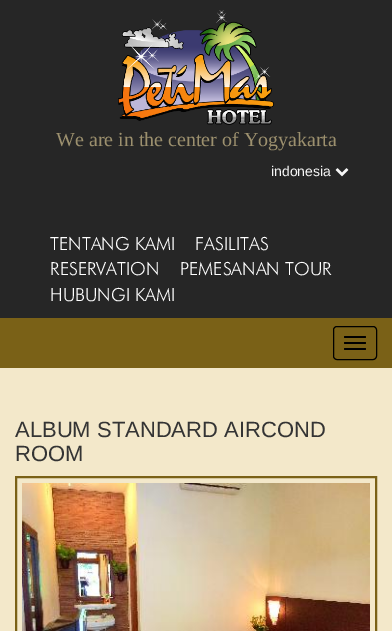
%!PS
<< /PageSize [392 631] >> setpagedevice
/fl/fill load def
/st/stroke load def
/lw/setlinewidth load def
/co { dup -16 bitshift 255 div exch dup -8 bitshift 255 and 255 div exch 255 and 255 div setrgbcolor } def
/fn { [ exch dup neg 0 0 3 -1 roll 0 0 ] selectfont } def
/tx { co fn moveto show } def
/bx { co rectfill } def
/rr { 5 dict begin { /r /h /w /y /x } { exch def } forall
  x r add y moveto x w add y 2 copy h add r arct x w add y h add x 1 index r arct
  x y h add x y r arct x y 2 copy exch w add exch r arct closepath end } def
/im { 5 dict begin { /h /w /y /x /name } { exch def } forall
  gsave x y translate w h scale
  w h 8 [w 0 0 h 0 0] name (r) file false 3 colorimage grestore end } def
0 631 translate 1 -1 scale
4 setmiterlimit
0 0 392 631 16#262626 bx
(media/1.raw) 118 10 156 115 im
(media/2.raw) 335 168 14 9 im
0 318 392 50 16#7A6117 bx
16#000000 co
333.5 326.5 43 33 3.5 rr st
344 336 22 2 1 rr fl
344 342 22 2 1 rr fl
344 348 22 2 1 rr fl
0 368 392 263 16#F3E8CA bx
16#7A6117 co
2 lw
16 477 360 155 rectstroke
(media/3.raw) 22 483 348 148 im
(We are in the center of Yogyakarta) 56 146 /LiberationSerif-Regular 20 16#9C906E tx
(indonesia) 271 176 /LiberationSans-Regular 14 16#F6F6F6 tx
(TENTANG KAMI) 50 250 /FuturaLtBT-Light 18 16#FFFFFF tx
(FASILITAS) 195 250 /FuturaLtBT-Light 18 16#FFFFFF tx
(RESERVATION) 50 275 /FuturaLtBT-Light 18 16#FFFFFF tx
(PEMESANAN TOUR) 180 275 /FuturaLtBT-Light 18 16#FFFFFF tx
(HUBUNGI KAMI) 50 301 /FuturaLtBT-Light 18 16#FFFFFF tx
(ALBUM STANDARD AIRCOND) 15 437 /LiberationSans-Regular 22 16#343434 tx
(ROOM) 15 461 /LiberationSans-Regular 22 16#343434 tx
showpage
